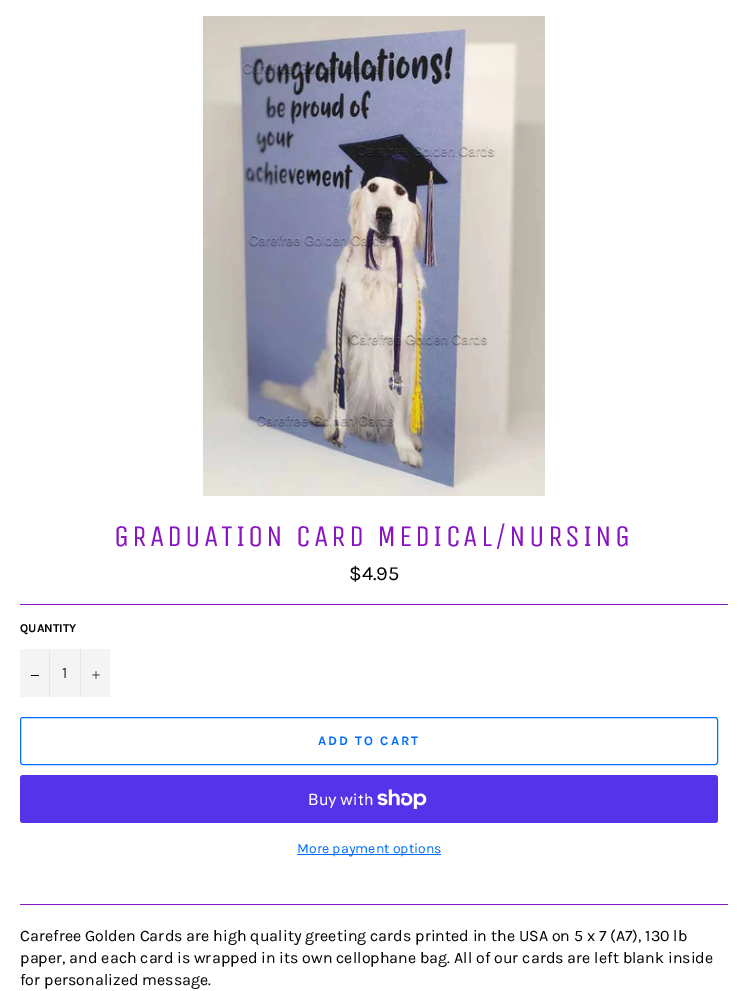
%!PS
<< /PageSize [748 991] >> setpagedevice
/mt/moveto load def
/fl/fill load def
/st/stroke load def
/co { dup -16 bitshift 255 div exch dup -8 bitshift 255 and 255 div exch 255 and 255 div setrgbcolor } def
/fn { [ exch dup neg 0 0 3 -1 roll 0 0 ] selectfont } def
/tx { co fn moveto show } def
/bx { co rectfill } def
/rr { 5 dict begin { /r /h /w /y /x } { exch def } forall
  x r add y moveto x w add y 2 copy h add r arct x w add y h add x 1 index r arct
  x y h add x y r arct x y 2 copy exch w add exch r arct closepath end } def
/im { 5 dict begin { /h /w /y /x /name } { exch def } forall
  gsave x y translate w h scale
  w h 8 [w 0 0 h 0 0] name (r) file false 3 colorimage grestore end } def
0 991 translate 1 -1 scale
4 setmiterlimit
0 0 748 991 16#FFFFFF bx
(media/1.raw) 203 16 342 480 im
20 604 708 1 16#8914C3 bx
20 649 90 48 16#F4F4F4 bx
49 649 1 48 16#E7E7E7 bx
31 675 8 1 16#030303 bx
80 649 1 48 16#E7E7E7 bx
(media/2.raw) 92 671 8 8 im
16#006EFF co
20.5 717.5 697 47 2.5 rr st
16#5433EB co
20 775 698 48 3 rr fl
(media/3.raw) 377 789 50 20 im
297 854 144 1 16#006EFF bx
20 904 708 1 16#8914C3 bx
/UnicaOne-Regular 30 fn
114 546 mt 3 0 (GRADUATION CARD MEDICAL/NURSING) ashow
($4.95) 349 580 /Karla-Regular 20 16#030303 tx
(QUANTITY) 20 632 /Karla-Bold 12 16#030303 tx
(1) 62 678 /Karla-Regular 16 16#333333 tx
/Karla-Bold 13 fn
16#006EFF co
318 745 mt 2 0 (ADD TO CART) ashow
(Buy with) 308 805 /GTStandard-Regular 16 16#FFFFFF tx
(More payment options) 297 853 /Karla-Regular 14 16#006EFF tx
(Carefree Golden Cards are high quality greeting cards printed in the USA on 5 x 7 \(A7\), 130 lb) 20 941 /Karla-Regular 16 16#030303 tx
(paper, and each card is wrapped in its own cellophane bag. All of our cards are left blank inside) 20 963 /Karla-Regular 16 16#030303 tx
(for personalized message.) 20 985 /Karla-Regular 16 16#030303 tx
showpage
